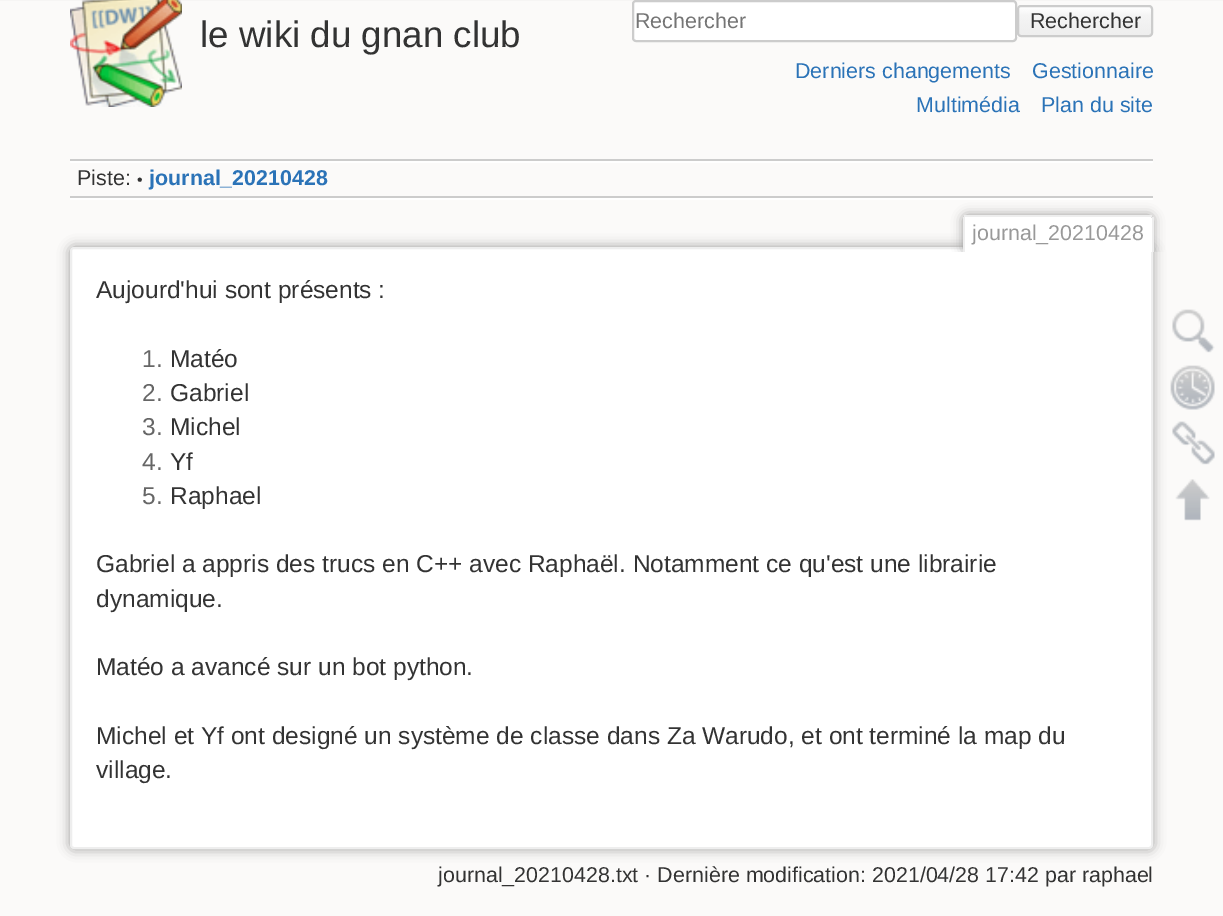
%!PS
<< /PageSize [1223 916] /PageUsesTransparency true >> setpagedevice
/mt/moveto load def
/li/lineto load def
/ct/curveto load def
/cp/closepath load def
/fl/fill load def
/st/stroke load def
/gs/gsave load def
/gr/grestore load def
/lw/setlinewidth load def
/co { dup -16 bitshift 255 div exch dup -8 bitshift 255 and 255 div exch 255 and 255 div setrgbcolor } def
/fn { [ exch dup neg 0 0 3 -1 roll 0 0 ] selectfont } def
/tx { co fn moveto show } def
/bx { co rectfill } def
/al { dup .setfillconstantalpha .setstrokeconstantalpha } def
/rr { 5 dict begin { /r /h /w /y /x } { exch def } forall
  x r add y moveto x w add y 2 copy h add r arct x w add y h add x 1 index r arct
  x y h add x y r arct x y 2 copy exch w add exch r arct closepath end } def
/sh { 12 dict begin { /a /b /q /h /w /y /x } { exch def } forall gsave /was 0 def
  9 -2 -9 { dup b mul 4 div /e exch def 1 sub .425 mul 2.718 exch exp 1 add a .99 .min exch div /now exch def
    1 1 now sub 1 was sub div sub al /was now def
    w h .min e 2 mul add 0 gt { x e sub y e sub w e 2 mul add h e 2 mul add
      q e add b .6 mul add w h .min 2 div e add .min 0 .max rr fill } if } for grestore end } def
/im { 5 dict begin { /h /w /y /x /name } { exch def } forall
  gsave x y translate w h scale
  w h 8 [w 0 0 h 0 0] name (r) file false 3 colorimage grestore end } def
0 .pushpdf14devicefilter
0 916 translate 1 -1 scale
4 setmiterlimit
0 0 1223 916 16#FBFAF9 bx
0 0 1223 1 16#F6F5F4 bx
(media/1.raw) 70 0 112 107 im
16#FFFFFF co
633 1 383 40 3 rr gs fl gr
16#CCCCCC co
2 lw
st
(media/2.raw) 1017 7 136 30 im
1018 6 134 30 3 rr st
70 159 1083 2 16#CCCCCC bx
70 198 1083 2 16#FFFFFF bx
70 161 1083 2 16#FFFFFF bx
70 196 1083 2 16#CCCCCC bx
16#999999 co
70 247 1083 602 4 6 1 sh
16#FFFFFF co
71 248 1081 600 3 rr gs fl gr
16#EEEEEE co
st
gs
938 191 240 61 rectclip
16#999999 co
963 215 190 37 4 5.5 1 sh
gr
16#FFFFFF co
966 217 mt 1150 217 li 1151 217 1152 218 1152 219 ct 1152 252 li 964 252 li 964 219 li 964 218 965 217 966 217 ct cp fl
964 215 188 2 16#EEEEEE bx
1152 217 2 35 16#EEEEEE bx
963 217 2 35 16#EEEEEE bx
(media/3.raw) 1172 309 43 44 im
(media/4.raw) 1170 365 45 45 im
(media/5.raw) 1172 421 43 44 im
(media/6.raw) 1175 479 35 42 im
(le wiki du gnan club) 200 47 /LiberationSans-Regular 36.75 16#333333 tx
(Rechercher) 635 28 /LiberationSans-Regular 21.45 16#757575 tx
(Rechercher) 1030 28 /LiberationSans-Regular 21.45 16#333333 tx
(Derniers changements) 795 78 /LiberationSans-Regular 21.45 16#2B73B7 tx
(Gestionnaire) 1032 78 /LiberationSans-Regular 21.45 16#2B73B7 tx
(Multimédia) 916 112 /LiberationSans-Regular 21.45 16#2B73B7 tx
(Plan du site) 1041 112 /LiberationSans-Regular 21.45 16#2B73B7 tx
(Piste:) 77 185 /LiberationSans-Regular 21.45 16#333333 tx
(•) 137 185 /LiberationSans-Regular 16 16#333333 tx
(journal_20210428) 149 185 /LiberationSans-Bold 21.45 16#2B73B7 tx
(journal_20210428) 972 240 /LiberationSans-Regular 21.45 16#999999 tx
(Aujourd'hui sont présents :) 96 298 /LiberationSans-Regular 24.5 16#333333 tx
(1.) 142 367 /LiberationSans-Regular 24.5 16#666666 tx
(Matéo) 170 367 /LiberationSans-Regular 24.5 16#333333 tx
(2.) 142 401 /LiberationSans-Regular 24.5 16#666666 tx
(Gabriel) 170 401 /LiberationSans-Regular 24.5 16#333333 tx
(3.) 142 435 /LiberationSans-Regular 24.5 16#666666 tx
(Michel) 170 435 /LiberationSans-Regular 24.5 16#333333 tx
(4.) 142 470 /LiberationSans-Regular 24.5 16#666666 tx
(Yf) 170 470 /LiberationSans-Regular 24.5 16#333333 tx
(5.) 142 504 /LiberationSans-Regular 24.5 16#666666 tx
(Raphael) 170 504 /LiberationSans-Regular 24.5 16#333333 tx
(Gabriel a appris des trucs en C++ avec Raphaël. Notamment ce qu'est une librairie) 96 572 /LiberationSans-Regular 24.5 16#333333 tx
(dynamique.) 96 607 /LiberationSans-Regular 24.5 16#333333 tx
(Matéo a avancé sur un bot python.) 96 675 /LiberationSans-Regular 24.5 16#333333 tx
(Michel et Yf ont designé un système de classe dans Za Warudo, et ont terminé la map du) 96 744 /LiberationSans-Regular 24.5 16#333333 tx
(village.) 96 778 /LiberationSans-Regular 24.5 16#333333 tx
(journal_20210428.txt · Dernière modification: 2021/04/28 17:42 par raphael) 438 882 /LiberationSans-Regular 21.45 16#333333 tx
.poppdf14devicefilter showpage
